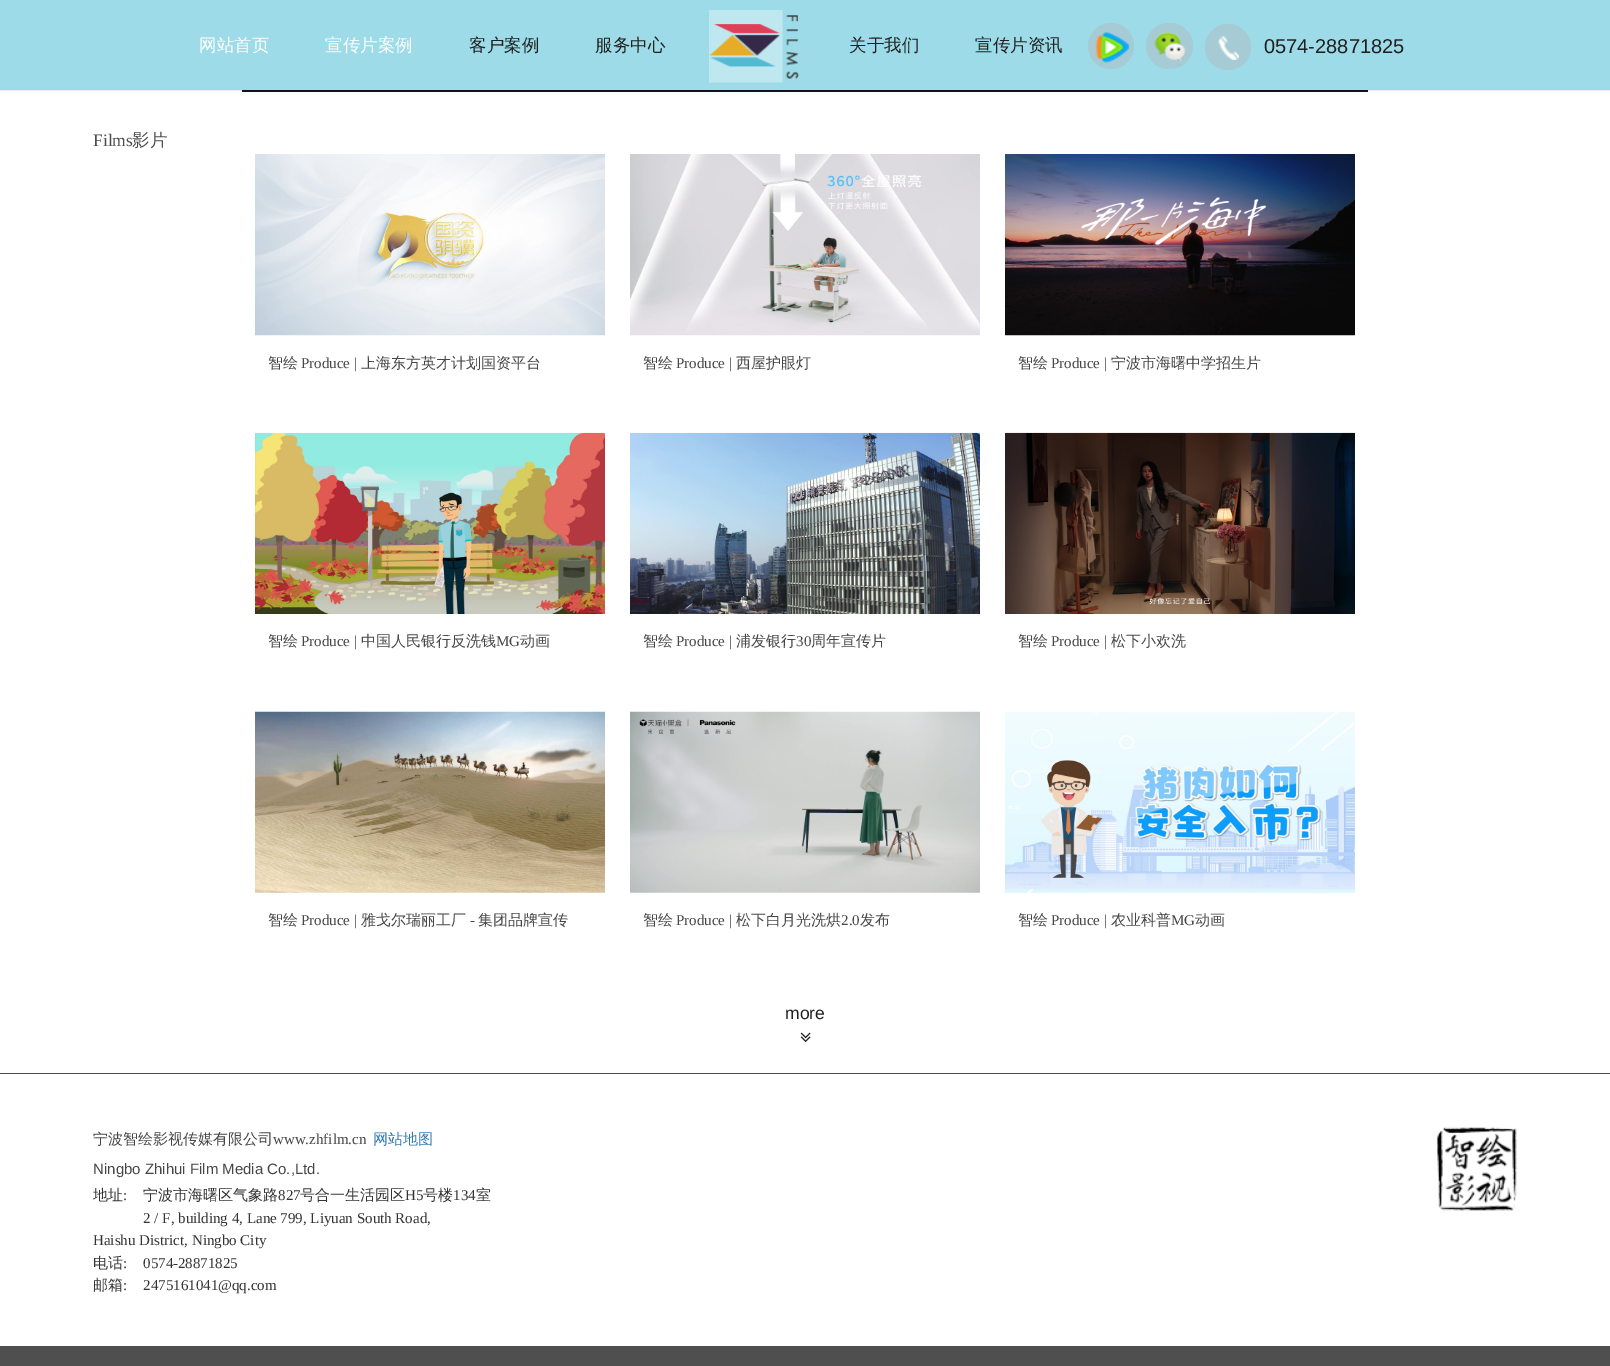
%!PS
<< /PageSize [1610 1366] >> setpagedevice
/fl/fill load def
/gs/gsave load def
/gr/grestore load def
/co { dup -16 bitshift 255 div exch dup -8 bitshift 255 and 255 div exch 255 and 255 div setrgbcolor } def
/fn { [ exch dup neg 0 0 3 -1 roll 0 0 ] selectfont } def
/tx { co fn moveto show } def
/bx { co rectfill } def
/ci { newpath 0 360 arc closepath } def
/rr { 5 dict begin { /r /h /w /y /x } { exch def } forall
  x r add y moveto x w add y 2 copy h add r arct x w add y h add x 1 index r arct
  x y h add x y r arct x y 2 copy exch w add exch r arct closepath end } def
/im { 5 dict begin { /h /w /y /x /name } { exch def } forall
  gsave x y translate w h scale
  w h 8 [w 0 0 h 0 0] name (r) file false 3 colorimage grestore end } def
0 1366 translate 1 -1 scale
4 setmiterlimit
0 0 1610 1366 16#FFFFFF bx
0 0 1610 90 16#9CDBE7 bx
(media/1.raw) 709 10 90 73 im
16#A6CBD4 co
1111 46 23 ci fl
(media/2.raw) 1095 32 35 31 im
1146 23 47 46 23 rr fl
(media/3.raw) 1154 32 32 30 im
1228 47 23 ci fl
(media/4.raw) 1218 36 21 24 im
0 1073 1610 1 16#4B4B4C bx
0 90 1610 1 16#EDEDED bx
242 90 1126 2 16#131313 bx
(media/5.raw) 255 154 350 182 im
(media/6.raw) 630 154 350 182 im
(media/7.raw) 1005 154 350 182 im
(media/8.raw) 255 432 350 182 im
(media/9.raw) 630 432 350 182 im
(media/10.raw) 1005 432 350 182 im
(media/11.raw) 255 711 350 182 im
(media/12.raw) 630 711 350 182 im
(media/13.raw) 1005 712 350 181 im
(media/14.raw) 800 1032 11 10 im
(media/15.raw) 1436 1127 81 84 im
0 1346 1610 20 16#4F4F4F bx
(网站首页) 199 51 /WenQuanYiZenHei-Medium 17.5 16#FFFFFF tx
(宣传片案例) 325 51 /WenQuanYiZenHei-Medium 17.5 16#FFFFFF tx
(客户案例) 469 51 /WenQuanYiZenHei-Medium 17.5 16#202020 tx
(服务中心) 595 51 /WenQuanYiZenHei-Medium 17.5 16#202020 tx
(关于我们) 849 51 /WenQuanYiZenHei-Medium 17.5 16#202020 tx
(宣传片资讯) 975 51 /WenQuanYiZenHei-Medium 17.5 16#202020 tx
(0574-28871825) 1264 53 /LiberationSans-Regular 20 16#202020 tx
(Films) 93 146 /LiberationSerif-Regular 17.5 16#4B4B4C tx
(影片) 132 146 /WenQuanYiZenHei-Medium 17.5 16#4B4B4C tx
(智绘) 268 368 /WenQuanYiZenHei-Medium 15 16#464646 tx
(Produce |) 301 368 /LiberationSerif-Regular 15 16#464646 tx
(上海东方英才计划国资平台) 361 368 /WenQuanYiZenHei-Medium 15 16#464646 tx
(智绘) 643 368 /WenQuanYiZenHei-Medium 15 16#464646 tx
(Produce |) 676 368 /LiberationSerif-Regular 15 16#464646 tx
(西屋护眼灯) 736 368 /WenQuanYiZenHei-Medium 15 16#464646 tx
(智绘) 1018 368 /WenQuanYiZenHei-Medium 15 16#464646 tx
(Produce |) 1051 368 /LiberationSerif-Regular 15 16#464646 tx
(宁波市海曙中学招生片) 1111 368 /WenQuanYiZenHei-Medium 15 16#464646 tx
(智绘) 268 646 /WenQuanYiZenHei-Medium 15 16#464646 tx
(Produce |) 301 646 /LiberationSerif-Regular 15 16#464646 tx
(中国人民银行反洗钱) 361 646 /WenQuanYiZenHei-Medium 15 16#464646 tx
(MG) 496 646 /LiberationSerif-Regular 15 16#464646 tx
(动画) 520 646 /WenQuanYiZenHei-Medium 15 16#464646 tx
(智绘) 643 646 /WenQuanYiZenHei-Medium 15 16#464646 tx
(Produce |) 676 646 /LiberationSerif-Regular 15 16#464646 tx
(浦发银行) 736 646 /WenQuanYiZenHei-Medium 15 16#464646 tx
(30) 796 646 /LiberationSerif-Regular 15 16#464646 tx
(周年宣传片) 811 646 /WenQuanYiZenHei-Medium 15 16#464646 tx
(智绘) 1018 646 /WenQuanYiZenHei-Medium 15 16#464646 tx
(Produce |) 1051 646 /LiberationSerif-Regular 15 16#464646 tx
(松下小欢洗) 1111 646 /WenQuanYiZenHei-Medium 15 16#464646 tx
(智绘) 268 925 /WenQuanYiZenHei-Medium 15 16#464646 tx
(Produce |) 301 925 /LiberationSerif-Regular 15 16#464646 tx
(雅戈尔瑞丽工厂) 361 925 /WenQuanYiZenHei-Medium 15 16#464646 tx
(-) 470 925 /LiberationSerif-Regular 15 16#464646 tx
(集团品牌宣传) 478 925 /WenQuanYiZenHei-Medium 15 16#464646 tx
(智绘) 643 925 /WenQuanYiZenHei-Medium 15 16#464646 tx
(Produce |) 676 925 /LiberationSerif-Regular 15 16#464646 tx
(松下白月光洗烘) 736 925 /WenQuanYiZenHei-Medium 15 16#464646 tx
(2.0) 841 925 /LiberationSerif-Regular 15 16#464646 tx
(发布) 860 925 /WenQuanYiZenHei-Medium 15 16#464646 tx
(智绘) 1018 925 /WenQuanYiZenHei-Medium 15 16#464646 tx
(Produce |) 1051 925 /LiberationSerif-Regular 15 16#464646 tx
(农业科普) 1111 925 /WenQuanYiZenHei-Medium 15 16#464646 tx
(MG) 1171 925 /LiberationSerif-Regular 15 16#464646 tx
(动画) 1195 925 /WenQuanYiZenHei-Medium 15 16#464646 tx
(more) 785 1019 /LiberationSans-Regular 17.5 16#202020 tx
(宁波智绘影视传媒有限公司) 93 1144 /WenQuanYiZenHei-Medium 15 16#464646 tx
(www.zhfilm.cn) 273 1144 /LiberationSerif-Regular 15 16#464646 tx
(网站地图) 373 1144 /WenQuanYiZenHei-Medium 15 16#337AB7 tx
(Ningbo Zhihui Film Media Co.,Ltd.) 93 1174 /LiberationSans-Regular 15 16#464646 tx
gs
93 1124 425 172 rectclip
(地址) 93 1200 /WenQuanYiZenHei-Medium 15 16#333333 tx
gr
(:) 123 1200 /LiberationSerif-Regular 15 16#333333 tx
(宁波市海曙区气象路) 143 1200 /WenQuanYiZenHei-Medium 15 16#333333 tx
(827) 278 1200 /LiberationSerif-Regular 15 16#333333 tx
(号合一生活园区) 300 1200 /WenQuanYiZenHei-Medium 15 16#333333 tx
(H5) 405 1200 /LiberationSerif-Regular 15 16#333333 tx
(号楼) 423 1200 /WenQuanYiZenHei-Medium 15 16#333333 tx
(134) 453 1200 /LiberationSerif-Regular 15 16#333333 tx
(室) 476 1200 /WenQuanYiZenHei-Medium 15 16#333333 tx
(2 / F, building 4, Lane 799, Liyuan South Road,) 143 1223 /LiberationSerif-Regular 15 16#333333 tx
(Haishu District, Ningbo City) 93 1245 /LiberationSerif-Regular 15 16#333333 tx
(电话) 93 1268 /WenQuanYiZenHei-Medium 15 16#333333 tx
(:) 123 1268 /LiberationSerif-Regular 15 16#333333 tx
(0574-28871825) 143 1268 /LiberationSerif-Regular 15 16#333333 tx
(邮箱) 93 1290 /WenQuanYiZenHei-Medium 15 16#333333 tx
(:) 123 1290 /LiberationSerif-Regular 15 16#333333 tx
(2475161041@qq.com) 143 1290 /LiberationSerif-Regular 15 16#333333 tx
showpage
